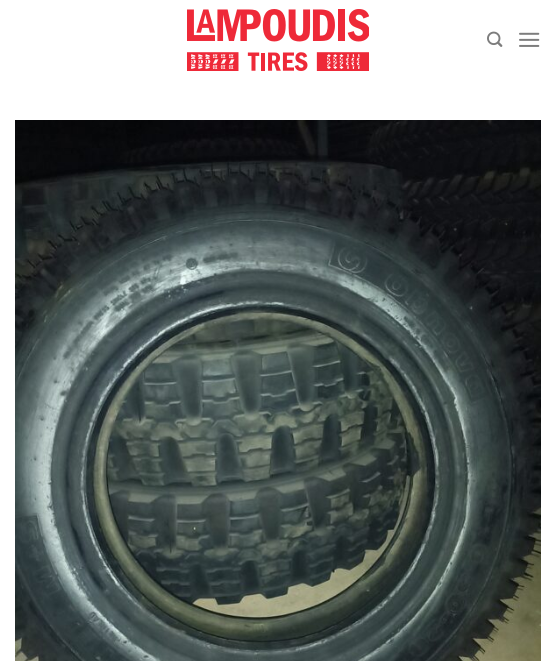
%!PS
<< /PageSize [556 661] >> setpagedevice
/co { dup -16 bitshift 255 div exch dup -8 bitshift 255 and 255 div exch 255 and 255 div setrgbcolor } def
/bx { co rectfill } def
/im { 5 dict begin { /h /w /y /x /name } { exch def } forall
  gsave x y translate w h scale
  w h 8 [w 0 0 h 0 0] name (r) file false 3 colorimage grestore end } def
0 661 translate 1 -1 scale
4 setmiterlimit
0 0 556 661 16#FFFFFF bx
(media/1.raw) 187 9 182 62 im
(media/2.raw) 487 31 16 16 im
(media/3.raw) 519 32 21 15 im
(media/4.raw) 15 120 526 541 im
showpage
